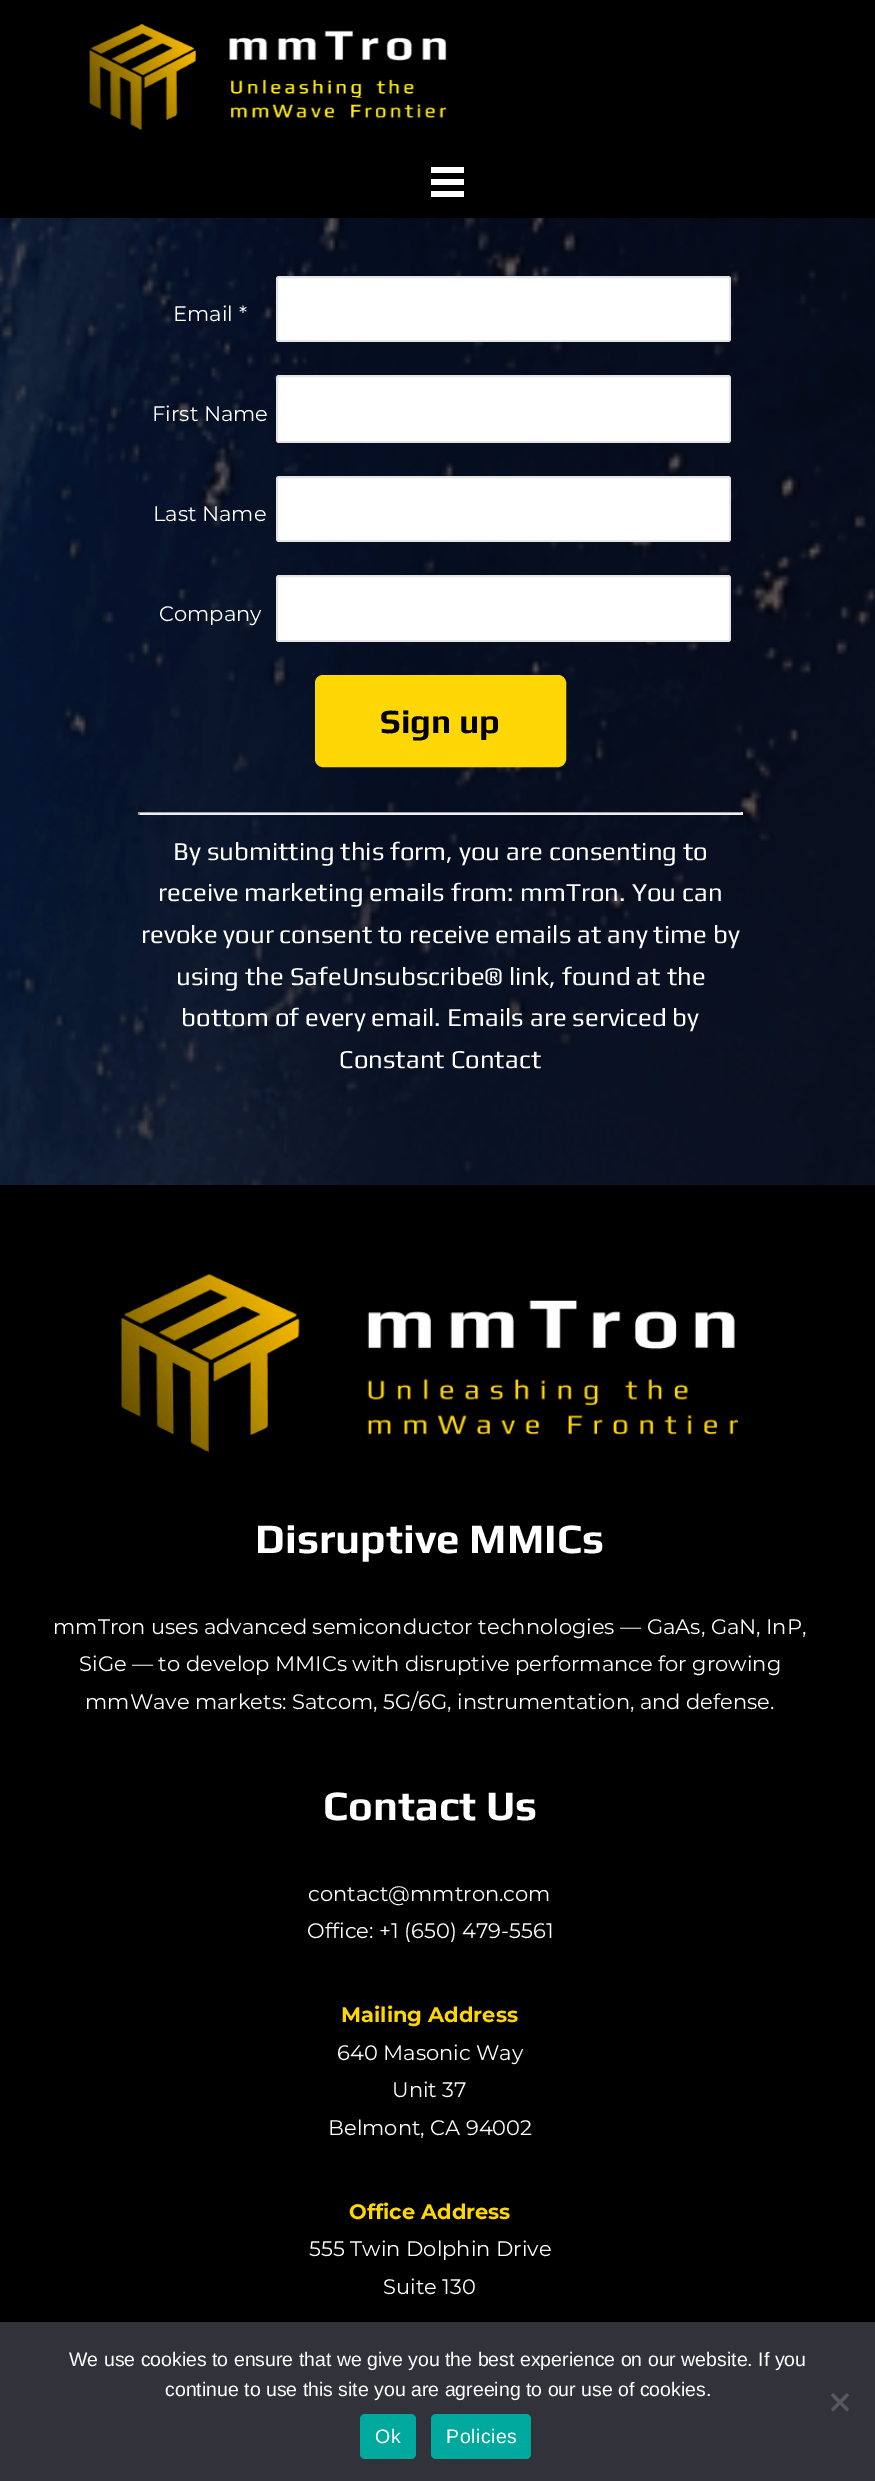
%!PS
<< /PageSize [875 2481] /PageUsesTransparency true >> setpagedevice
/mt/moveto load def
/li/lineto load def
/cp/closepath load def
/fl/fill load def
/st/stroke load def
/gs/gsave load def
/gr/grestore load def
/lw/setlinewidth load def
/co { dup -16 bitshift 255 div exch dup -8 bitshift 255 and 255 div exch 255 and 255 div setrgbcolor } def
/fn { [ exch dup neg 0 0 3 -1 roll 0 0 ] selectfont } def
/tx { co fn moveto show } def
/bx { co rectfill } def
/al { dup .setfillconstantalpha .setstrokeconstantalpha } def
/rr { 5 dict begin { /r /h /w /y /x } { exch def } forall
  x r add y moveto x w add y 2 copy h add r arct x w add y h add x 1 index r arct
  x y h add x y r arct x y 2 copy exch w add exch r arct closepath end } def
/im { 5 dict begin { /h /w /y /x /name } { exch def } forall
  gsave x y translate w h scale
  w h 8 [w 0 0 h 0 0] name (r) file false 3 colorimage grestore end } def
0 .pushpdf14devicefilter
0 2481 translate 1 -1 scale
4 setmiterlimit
0 0 875 2481 16#000000 bx
(media/1.raw) 89 24 358 106 im
431 167 33 6 16#FFFFFF bx
431 179 33 6 16#FFFFFF bx
431 191 33 6 16#FFFFFF bx
(media/2.raw) 0 218 875 967 im
276 276 455 66 3 rr fl
0.1 al
16#000000 co
2 lw
277 277 453 64 2 rr st
1 al
16#FFFFFF co
276 375 455 68 3 rr fl
0.1 al
16#000000 co
277 376 453 66 2 rr st
1 al
16#FFFFFF co
276 476 455 66 3 rr fl
0.1 al
16#000000 co
277 477 453 64 2 rr st
1 al
16#FFFFFF co
276 575 455 67 3 rr fl
0.1 al
16#000000 co
277 576 453 65 2 rr st
1 al
16#FFD704 co
316.5 676.5 248 89 6.5 rr gs fl gr
3 lw
st
138 812 605 1 16#9F9F9F bx
741 812 2 3 16#EEEEEE bx
138 813 605 2 16#EEEEEE bx
138 812 2 3 16#9F9F9F bx
(media/3.raw) 121 1274 617 178 im
0 2322 875 159 16#32323A bx
16#59595D co
847 2393 mt 849 2395.5 li 833 2411.5 li 831 2409 li cp fl
831 2395.5 mt 833 2393 li 849 2409 li 847 2411.5 li cp fl
16#00A99D co
360 2414 56 45 5 rr fl
431 2414 100 45 5 rr fl
(Email *) 173 321 /Montserrat-Regular 21 16#FFFFFF tx
(First Name) 152 421 /Montserrat-Regular 21 16#FFFFFF tx
(Last Name) 153 521 /Montserrat-Regular 21 16#FFFFFF tx
(Company) 159 621 /Montserrat-Regular 21 16#FFFFFF tx
(Sign up) 380 733 /Play-Bold 34 16#000000 tx
(By submitting this form, you are consenting to) 173 860 /Play-Regular 25.75 16#FFFFFF tx
(receive marketing emails from: mmTron. You can) 158 901 /Play-Regular 25.75 16#FFFFFF tx
(revoke your consent to receive emails at any time by) 141 943 /Play-Regular 25.75 16#FFFFFF tx
(using the SafeUnsubscribe® link, found at the) 176 985 /Play-Regular 25.75 16#FFFFFF tx
(bottom of every email. Emails are serviced by) 181 1026 /Play-Regular 25.75 16#FFFFFF tx
(Constant Contact) 339 1068 /Play-Regular 25.75 16#FFFFFF tx
(Disruptive MMICs) 255 1553 /Play-Bold 42 16#FFFFFF tx
(mmTron uses advanced semiconductor technologies — GaAs, GaN, InP,) 53 1634 /Montserrat-Regular 21 16#FFFFFF tx
(SiGe — to develop MMICs with disruptive performance for growing) 79 1671 /Montserrat-Regular 21 16#FFFFFF tx
(mmWave markets: Satcom, 5G/6G, instrumentation, and defense.) 85 1709 /Montserrat-Regular 21 16#FFFFFF tx
(Contact Us) 323 1820 /Play-Bold 42 16#FFFFFF tx
(contact@mmtron.com) 308 1901 /Montserrat-Regular 21 16#FFFFFF tx
(Office: +1 \(650\) 479-5561) 307 1938 /Montserrat-Regular 21 16#FFFFFF tx
(Mailing Address) 341 2022 /Montserrat-Bold 21 16#FFD700 tx
(640 Masonic Way) 337 2060 /Montserrat-Regular 21 16#FFFFFF tx
(Unit 37) 392 2097 /Montserrat-Regular 21 16#FFFFFF tx
(Belmont, CA 94002) 328 2135 /Montserrat-Regular 21 16#FFFFFF tx
(Office Address) 349 2219 /Montserrat-Bold 21 16#FFD700 tx
(555 Twin Dolphin Drive) 309 2256 /Montserrat-Regular 21 16#FFFFFF tx
(Suite 130) 383 2294 /Montserrat-Regular 21 16#FFFFFF tx
(We use cookies to ensure that we give you the best experience on our website. If you) 69 2366 /LiberationSans-Regular 19.5 16#FFFFFF tx
(continue to use this site you are agreeing to our use of cookies.) 165 2396 /LiberationSans-Regular 19.5 16#FFFFFF tx
375 2443 mt .5 0 (Ok) ashow
446 2443 mt .5 0 (Policies) ashow
.poppdf14devicefilter showpage
